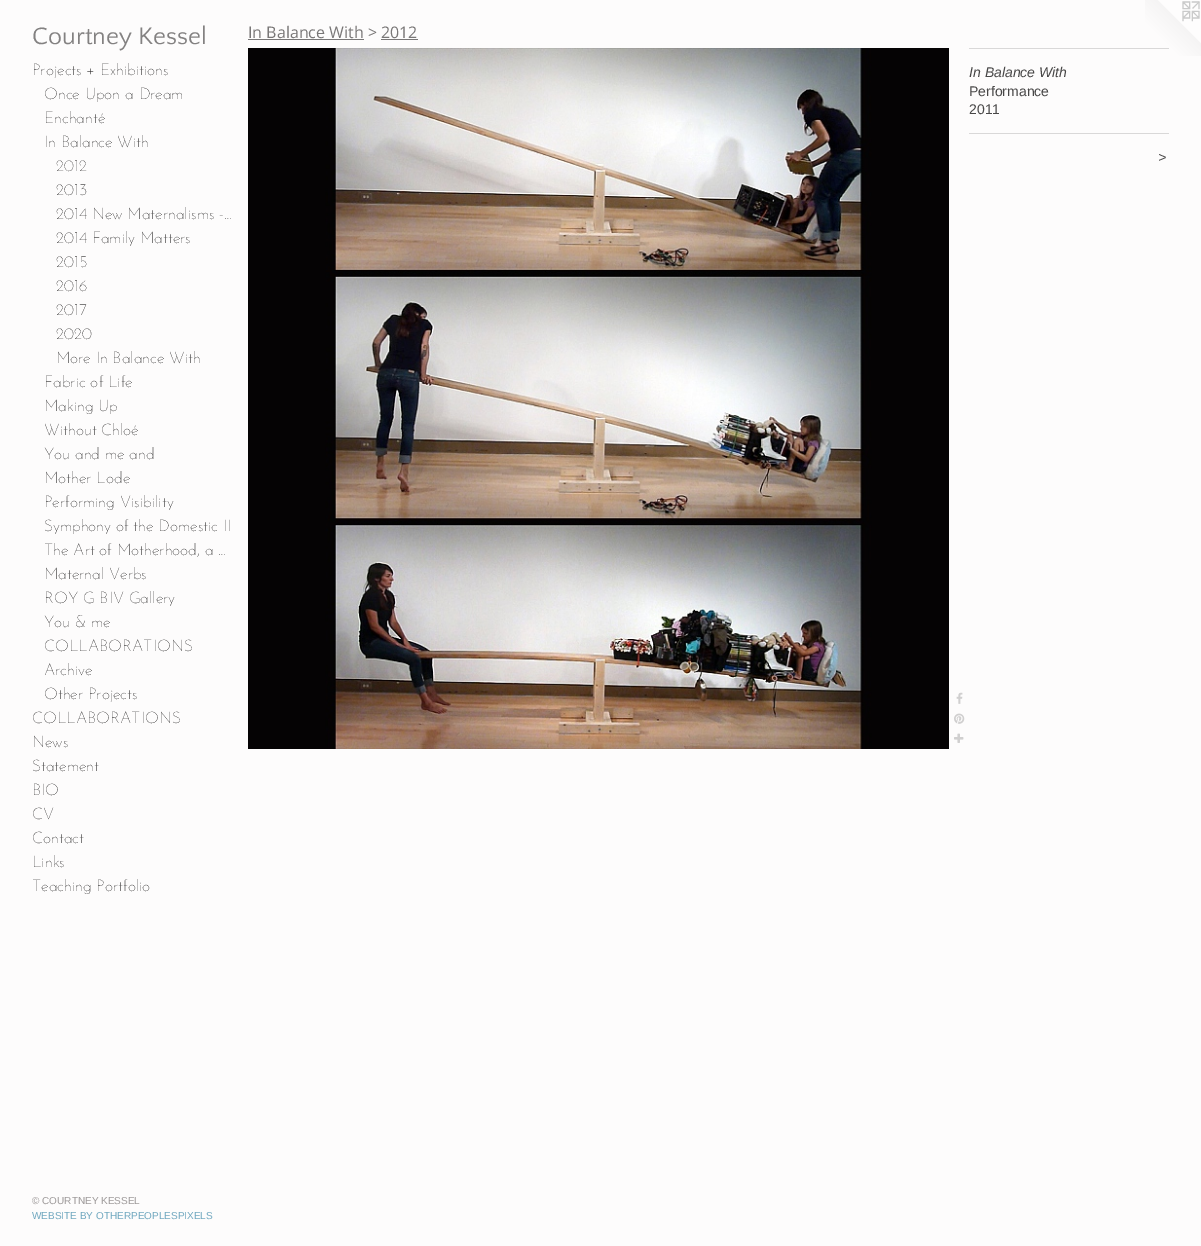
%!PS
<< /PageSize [1201 1246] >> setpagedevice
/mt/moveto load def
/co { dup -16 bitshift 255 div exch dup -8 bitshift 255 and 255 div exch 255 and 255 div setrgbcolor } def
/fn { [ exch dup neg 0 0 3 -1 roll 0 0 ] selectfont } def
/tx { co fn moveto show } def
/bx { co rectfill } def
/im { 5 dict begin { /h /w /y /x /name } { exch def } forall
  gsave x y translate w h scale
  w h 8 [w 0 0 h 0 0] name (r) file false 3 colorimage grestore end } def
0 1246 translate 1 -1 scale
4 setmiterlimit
0 0 1201 1246 16#FDFCFC bx
248 39 116 1 16#797777 bx
381 39 37 1 16#797777 bx
(media/1.raw) 248 48 701 701 im
(media/2.raw) 956 692 7 12 im
(media/3.raw) 954 713 11 11 im
(media/4.raw) 954 733 10 10 im
(media/5.raw) 1145 0 56 56 im
969 48 200 1 16#D9D8D8 bx
969 133 200 1 16#D9D8D8 bx
(Courtney Kessel) 32 44 /QuattrocentoSans-Regular 25 16#838181 tx
(Projects + Exhibitions) 32 75 /JosefinSans-Thin 16 16#100F0F tx
(Once Upon a Dream) 44 99 /JosefinSans-Thin 16 16#100F0F tx
(Enchanté) 44 123 /JosefinSans-Thin 16 16#100F0F tx
(In Balance With) 44 147 /JosefinSans-Thin 16 16#100F0F tx
(2012) 56 171 /JosefinSans-Thin 16 16#2A2828 tx
(2013) 56 195 /JosefinSans-Thin 16 16#100F0F tx
(2014 New Maternalisms -…) 56 219 /JosefinSans-Thin 16 16#100F0F tx
(2014 Family Matters) 56 243 /JosefinSans-Thin 16 16#100F0F tx
(2015) 56 267 /JosefinSans-Thin 16 16#100F0F tx
(2016) 56 291 /JosefinSans-Thin 16 16#100F0F tx
(2017) 56 315 /JosefinSans-Thin 16 16#100F0F tx
(2020) 56 339 /JosefinSans-Thin 16 16#100F0F tx
(More In Balance With) 56 363 /JosefinSans-Thin 16 16#100F0F tx
(Fabric of Life) 44 387 /JosefinSans-Thin 16 16#100F0F tx
(Making Up) 44 411 /JosefinSans-Thin 16 16#100F0F tx
(Without Chloé) 44 435 /JosefinSans-Thin 16 16#100F0F tx
(You and me and) 44 459 /JosefinSans-Thin 16 16#100F0F tx
(Mother Lode) 44 483 /JosefinSans-Thin 16 16#100F0F tx
(Performing Visibility) 44 507 /JosefinSans-Thin 16 16#100F0F tx
(Symphony of the Domestic II) 44 531 /JosefinSans-Thin 16 16#100F0F tx
(The Art of Motherhood, a …) 44 555 /JosefinSans-Thin 16 16#100F0F tx
(Maternal Verbs) 44 579 /JosefinSans-Thin 16 16#100F0F tx
(ROY G BIV Gallery) 44 603 /JosefinSans-Thin 16 16#100F0F tx
(You & me) 44 627 /JosefinSans-Thin 16 16#100F0F tx
(COLLABORATIONS) 44 651 /JosefinSans-Thin 16 16#100F0F tx
(Archive) 44 675 /JosefinSans-Thin 16 16#100F0F tx
(Other Projects) 44 699 /JosefinSans-Thin 16 16#100F0F tx
(COLLABORATIONS) 32 723 /JosefinSans-Thin 16 16#100F0F tx
(News) 32 747 /JosefinSans-Thin 16 16#100F0F tx
(Statement) 32 771 /JosefinSans-Thin 16 16#100F0F tx
(BIO) 32 795 /JosefinSans-Thin 16 16#100F0F tx
(CV) 32 819 /JosefinSans-Thin 16 16#100F0F tx
(Contact) 32 843 /JosefinSans-Thin 16 16#100F0F tx
(Links) 32 867 /JosefinSans-Thin 16 16#100F0F tx
(Teaching Portfolio) 32 891 /JosefinSans-Thin 16 16#100F0F tx
(© COURTNEY KESSEL) 32 1204 /LiberationSans-Regular 10 16#9E9A9A tx
(WEBSITE BY OTHERPEOPLESPIXELS) 32 1219 /LiberationSans-Regular 10 16#70A8C0 tx
(In Balance With > 2012) 248 38 /OpenSans-Regular 16 16#797777 tx
(In Balance With) 969 77 /LiberationSans-Italic 14 16#484747 tx
(Performance) 969 96 /LiberationSans-Regular 14 16#484747 tx
(2011) 969 114 /LiberationSans-Regular 14 16#484747 tx
/LiberationSans-Italic 14 fn
1158 162 mt 1 0 (>) ashow
showpage
